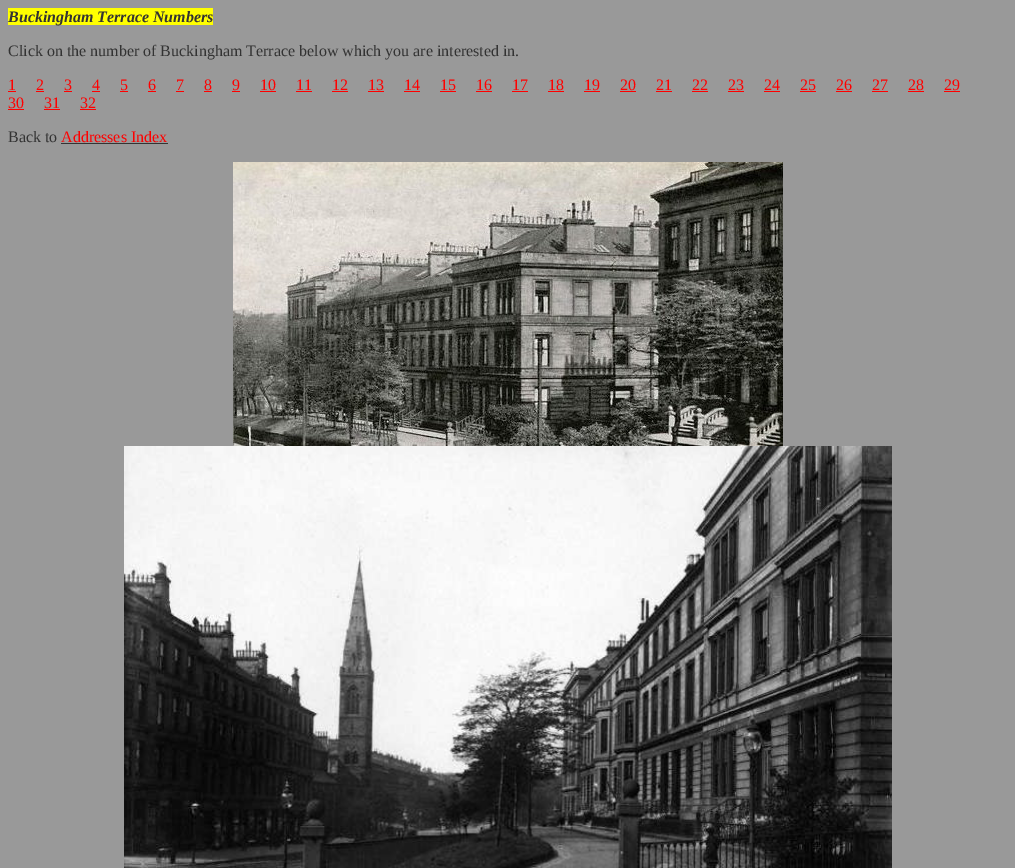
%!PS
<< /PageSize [1015 868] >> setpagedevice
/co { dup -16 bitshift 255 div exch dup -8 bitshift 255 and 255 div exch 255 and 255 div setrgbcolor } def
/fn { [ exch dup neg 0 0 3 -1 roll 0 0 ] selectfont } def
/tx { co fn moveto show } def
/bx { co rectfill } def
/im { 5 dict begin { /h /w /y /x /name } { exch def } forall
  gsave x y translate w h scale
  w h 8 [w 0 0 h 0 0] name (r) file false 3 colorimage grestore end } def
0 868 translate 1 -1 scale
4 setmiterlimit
0 0 1015 868 16#999999 bx
8 8 205 17 16#FFFF00 bx
8 91 8 1 16#FF0000 bx
36 91 8 1 16#FF0000 bx
64 91 8 1 16#FF0000 bx
92 91 8 1 16#FF0000 bx
120 91 8 1 16#FF0000 bx
148 91 8 1 16#FF0000 bx
176 91 8 1 16#FF0000 bx
204 91 8 1 16#FF0000 bx
232 91 8 1 16#FF0000 bx
260 91 16 1 16#FF0000 bx
296 91 16 1 16#FF0000 bx
332 91 16 1 16#FF0000 bx
368 91 16 1 16#FF0000 bx
404 91 16 1 16#FF0000 bx
440 91 16 1 16#FF0000 bx
476 91 16 1 16#FF0000 bx
512 91 16 1 16#FF0000 bx
548 91 16 1 16#FF0000 bx
584 91 16 1 16#FF0000 bx
620 91 16 1 16#FF0000 bx
656 91 16 1 16#FF0000 bx
692 91 16 1 16#FF0000 bx
728 91 16 1 16#FF0000 bx
764 91 16 1 16#FF0000 bx
800 91 16 1 16#FF0000 bx
836 91 16 1 16#FF0000 bx
872 91 16 1 16#FF0000 bx
908 91 16 1 16#FF0000 bx
944 91 16 1 16#FF0000 bx
8 109 16 1 16#FF0000 bx
44 109 16 1 16#FF0000 bx
80 109 16 1 16#FF0000 bx
61 143 107 1 16#333333 bx
(media/1.raw) 233 162 550 284 im
(media/2.raw) 124 446 768 422 im
(Buckingham Terrace Numbers) 8 22 /LiberationSerif-BoldItalic 16 16#333333 tx
(Click on the number of Buckingham Terrace below which you are interested in.) 8 56 /LiberationSerif-Regular 16 16#333333 tx
(1) 8 90 /LiberationSerif-Regular 16 16#FF0000 tx
(2) 36 90 /LiberationSerif-Regular 16 16#FF0000 tx
(3) 64 90 /LiberationSerif-Regular 16 16#FF0000 tx
(4) 92 90 /LiberationSerif-Regular 16 16#FF0000 tx
(5) 120 90 /LiberationSerif-Regular 16 16#FF0000 tx
(6) 148 90 /LiberationSerif-Regular 16 16#FF0000 tx
(7) 176 90 /LiberationSerif-Regular 16 16#FF0000 tx
(8) 204 90 /LiberationSerif-Regular 16 16#FF0000 tx
(9) 232 90 /LiberationSerif-Regular 16 16#FF0000 tx
(10) 260 90 /LiberationSerif-Regular 16 16#FF0000 tx
(11) 296 90 /LiberationSerif-Regular 16 16#FF0000 tx
(12) 332 90 /LiberationSerif-Regular 16 16#FF0000 tx
(13) 368 90 /LiberationSerif-Regular 16 16#FF0000 tx
(14) 404 90 /LiberationSerif-Regular 16 16#FF0000 tx
(15) 440 90 /LiberationSerif-Regular 16 16#FF0000 tx
(16) 476 90 /LiberationSerif-Regular 16 16#FF0000 tx
(17) 512 90 /LiberationSerif-Regular 16 16#FF0000 tx
(18) 548 90 /LiberationSerif-Regular 16 16#FF0000 tx
(19) 584 90 /LiberationSerif-Regular 16 16#FF0000 tx
(20) 620 90 /LiberationSerif-Regular 16 16#FF0000 tx
(21) 656 90 /LiberationSerif-Regular 16 16#FF0000 tx
(22) 692 90 /LiberationSerif-Regular 16 16#FF0000 tx
(23) 728 90 /LiberationSerif-Regular 16 16#FF0000 tx
(24) 764 90 /LiberationSerif-Regular 16 16#FF0000 tx
(25) 800 90 /LiberationSerif-Regular 16 16#FF0000 tx
(26) 836 90 /LiberationSerif-Regular 16 16#FF0000 tx
(27) 872 90 /LiberationSerif-Regular 16 16#FF0000 tx
(28) 908 90 /LiberationSerif-Regular 16 16#FF0000 tx
(29) 944 90 /LiberationSerif-Regular 16 16#FF0000 tx
(30) 8 108 /LiberationSerif-Regular 16 16#FF0000 tx
(31) 44 108 /LiberationSerif-Regular 16 16#FF0000 tx
(32) 80 108 /LiberationSerif-Regular 16 16#FF0000 tx
(Back to) 8 142 /LiberationSerif-Regular 16 16#333333 tx
(Addresses Index) 61 142 /LiberationSerif-Regular 16 16#FF0000 tx
showpage
